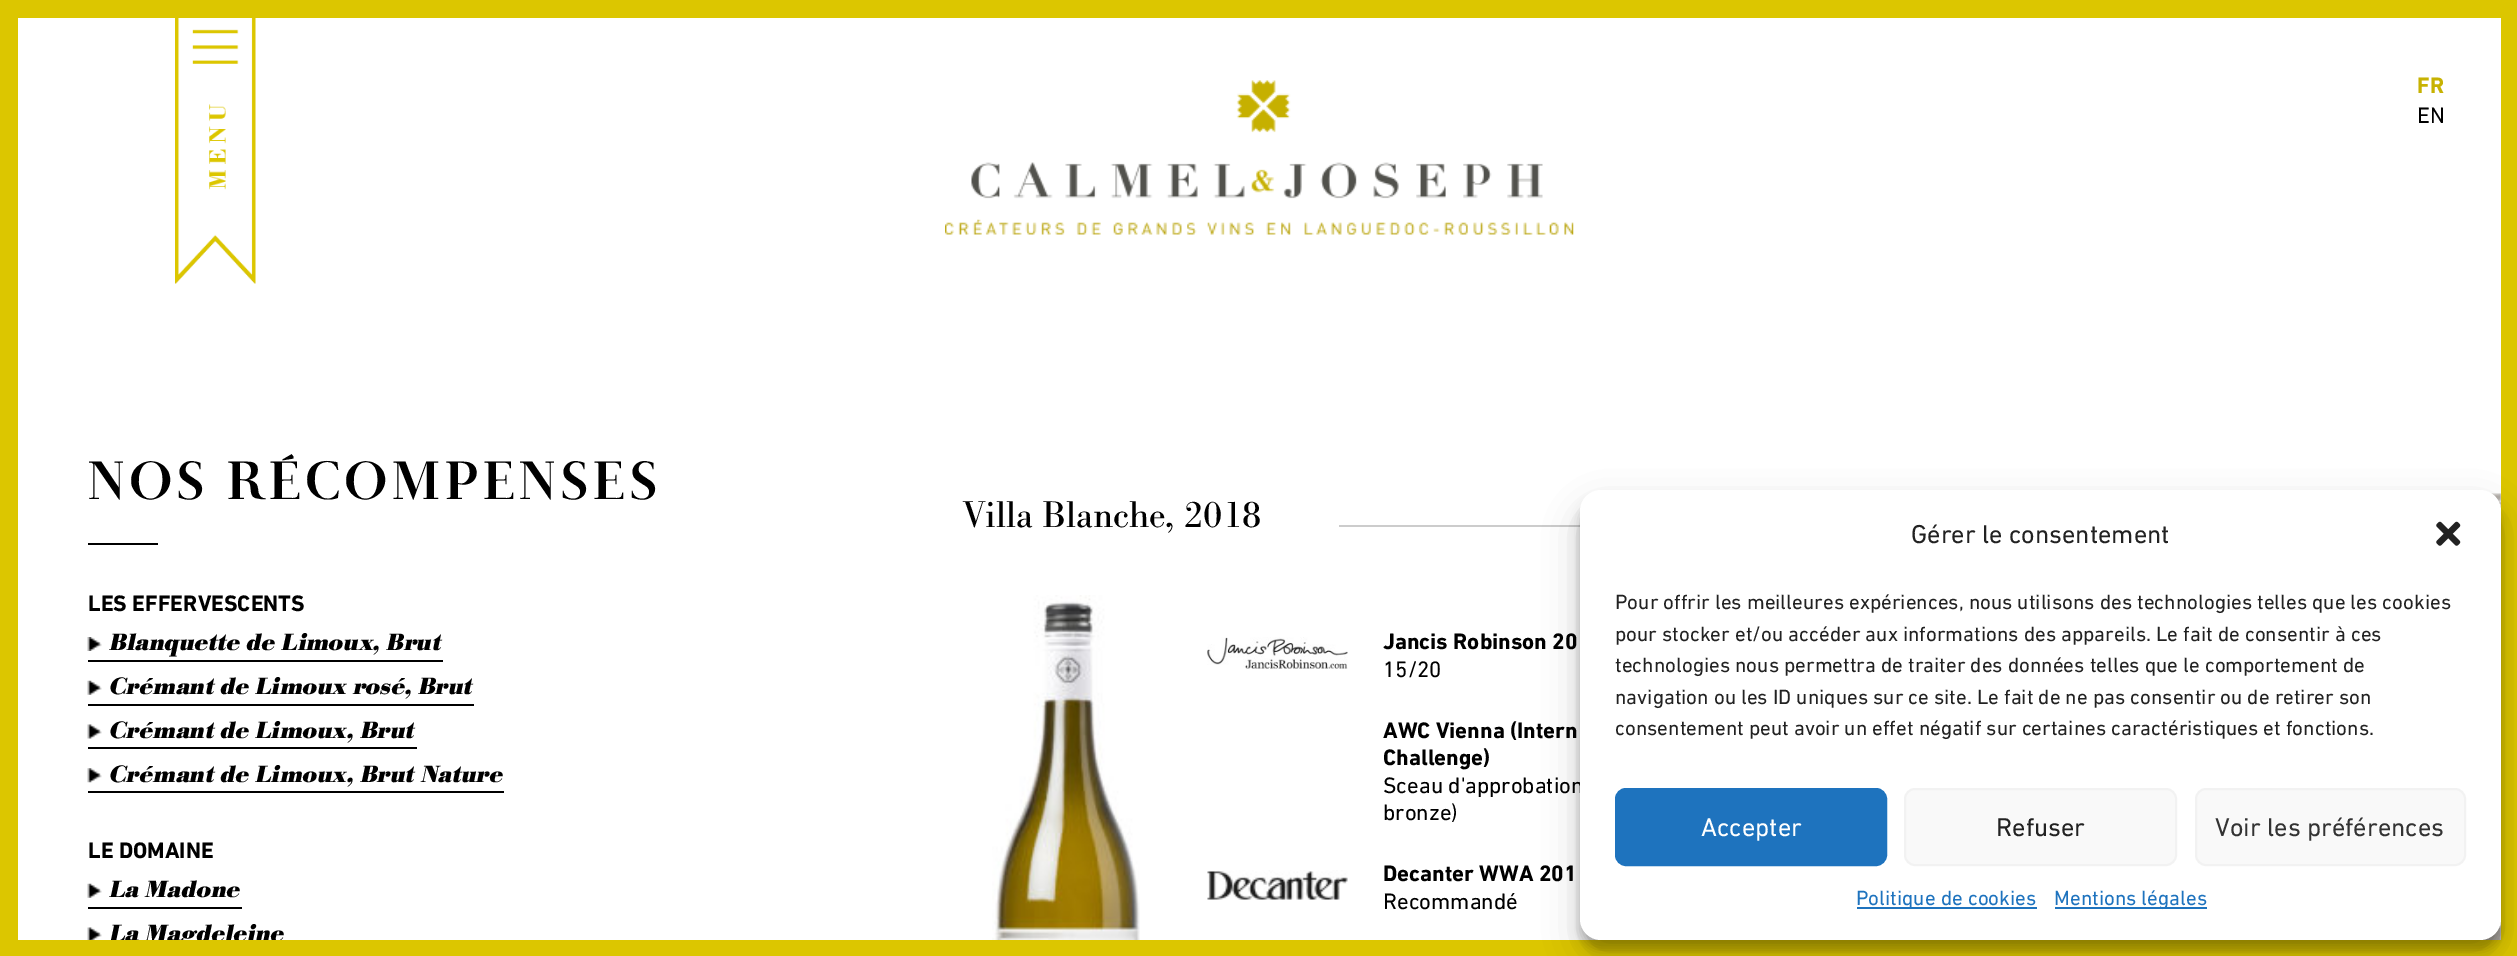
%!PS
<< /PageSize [2517 956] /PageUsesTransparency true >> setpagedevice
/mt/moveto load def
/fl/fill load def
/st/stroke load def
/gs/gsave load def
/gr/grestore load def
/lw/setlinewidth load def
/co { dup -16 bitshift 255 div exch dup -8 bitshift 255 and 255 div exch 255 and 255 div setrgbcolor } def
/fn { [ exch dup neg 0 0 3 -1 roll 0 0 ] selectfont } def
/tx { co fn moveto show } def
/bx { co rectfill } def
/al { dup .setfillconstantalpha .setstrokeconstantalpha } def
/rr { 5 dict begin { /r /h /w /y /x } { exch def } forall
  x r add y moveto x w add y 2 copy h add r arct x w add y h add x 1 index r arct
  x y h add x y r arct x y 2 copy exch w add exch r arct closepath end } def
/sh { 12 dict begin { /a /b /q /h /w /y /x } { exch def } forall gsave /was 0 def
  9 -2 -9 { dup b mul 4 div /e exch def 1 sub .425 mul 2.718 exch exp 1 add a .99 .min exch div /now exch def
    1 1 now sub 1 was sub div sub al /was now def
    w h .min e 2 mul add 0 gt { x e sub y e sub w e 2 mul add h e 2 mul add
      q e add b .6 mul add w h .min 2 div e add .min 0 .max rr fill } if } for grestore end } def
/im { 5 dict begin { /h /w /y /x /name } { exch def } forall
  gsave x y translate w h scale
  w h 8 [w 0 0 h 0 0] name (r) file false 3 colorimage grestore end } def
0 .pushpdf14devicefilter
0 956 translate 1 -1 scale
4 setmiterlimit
0 0 2517 956 16#DCC600 bx
18 18 2483 922 16#FFFFFF bx
(media/1.raw) 175 18 81 266 im
(media/2.raw) 945 80 629 155 im
88 543 70 2 16#000000 bx
88 660 355 2 16#000000 bx
(media/3.raw) 87 637 15 14 im
88 704 386 2 16#000000 bx
(media/4.raw) 87 680 15 15 im
88 747 329 2 16#000000 bx
(media/5.raw) 87 724 15 15 im
88 791 416 2 16#000000 bx
(media/6.raw) 87 768 15 15 im
88 907 154 2 16#000000 bx
(media/4.raw) 87 883 15 15 im
(media/7.raw) 87 927 15 13 im
1339 525 241 2 16#CCCCCC bx
(media/8.raw) 992 595 148 345 im
(media/9.raw) 1207 637 141 32 im
(media/10.raw) 1207 870 141 30 im
(media/11.raw) 2480 493 21 447 im
16#000000 co
1580 501 921 449 21 5 .23 sh
1580 508 921 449 21 17.5 .19 sh
(FR) 2417 93 /DIN-Bold 22.75 16#C7B202 tx
(EN) 2417 123 /DIN-Regular 22.75 16#000000 tx
/Didot-Bold 56 fn
88 499 mt 5.25 0 (NOS RÉCOMPENSES) ashow
(LES EFFERVESCENTS) 88 611 /DIN-Bold 22.75 16#000000 tx
(Blanquette de Limoux, Brut) 110 650 /Bodoni-Bold 24.5 16#000000 tx
(Crémant de Limoux rosé, Brut) 110 694 /Bodoni-Bold 24.5 16#000000 tx
(Crémant de Limoux, Brut) 110 738 /Bodoni-Bold 24.5 16#000000 tx
(Crémant de Limoux, Brut Nature) 110 782 /Bodoni-Bold 24.5 16#000000 tx
(LE DOMAINE) 88 858 /DIN-Bold 22.75 16#000000 tx
(La Madone) 110 897 /Bodoni-Bold 24.5 16#000000 tx
(La Magdeleine) 110 941 /Bodoni-Bold 24.5 16#000000 tx
(Villa Blanche, 2018) 963 527 /Bodoni-Regular 38.5 16#000000 tx
(Jancis Robinson 20) 1383 649 /DIN-Bold 22.75 16#000000 tx
(15/20) 1383 677 /DIN-Regular 22.75 16#000000 tx
(AWC Vienna \(Intern) 1383 738 /DIN-Bold 22.75 16#000000 tx
(Challenge\)) 1383 765 /DIN-Bold 22.75 16#000000 tx
(Sceau d'approbation) 1383 793 /DIN-Regular 22.75 16#000000 tx
(bronze\)) 1383 820 /DIN-Regular 22.75 16#000000 tx
(Decanter WWA 201) 1383 881 /DIN-Bold 22.75 16#000000 tx
(Recommandé) 1383 909 /DIN-Regular 22.75 16#000000 tx
16#FFFFFF co
1580 490 921 450 21 rr fl
(Gérer le consentement) 1911 543 /DIN-Regular 26.25 16#222222 tx
(media/12.raw) 2436 521 25 25 im
(Pour offrir les meilleures expériences, nous utilisons des technologies telles que les cookies) 1615 609 /DIN-Regular 21 16#222222 tx
(pour stocker et/ou accéder aux informations des appareils. Le fait de consentir à ces) 1615 641 /DIN-Regular 21 16#222222 tx
(technologies nous permettra de traiter des données telles que le comportement de) 1615 672 /DIN-Regular 21 16#222222 tx
(navigation ou les ID uniques sur ce site. Le fait de ne pas consentir ou de retirer son) 1615 704 /DIN-Regular 21 16#222222 tx
(consentement peut avoir un effet négatif sur certaines caractéristiques et fonctions.) 1615 735 /DIN-Regular 21 16#222222 tx
16#1E73BE co
1616 789 270 76 10 rr gs fl gr
2 lw
st
(Accepter) 1701 836 /DIN-Regular 26.25 16#FFFFFF tx
16#F9F9F9 co
1905 789 271 76 10 rr gs fl gr
16#F2F2F2 co
st
(Refuser) 1996 836 /DIN-Regular 26.25 16#222222 tx
16#F9F9F9 co
2196 789 269 76 10 rr gs fl gr
16#F2F2F2 co
st
(Voir les préférences) 2215 836 /DIN-Regular 26.25 16#333333 tx
1857 907 180 2 16#1E73BE bx
(Politique de cookies) 1856 905 /DIN-Regular 21 16#1E73BE tx
2055 907 152 2 16#1E73BE bx
(Mentions légales) 2054 905 /DIN-Regular 21 16#1E73BE tx
109 940 173 8 16#DCC600 bx
.poppdf14devicefilter showpage
